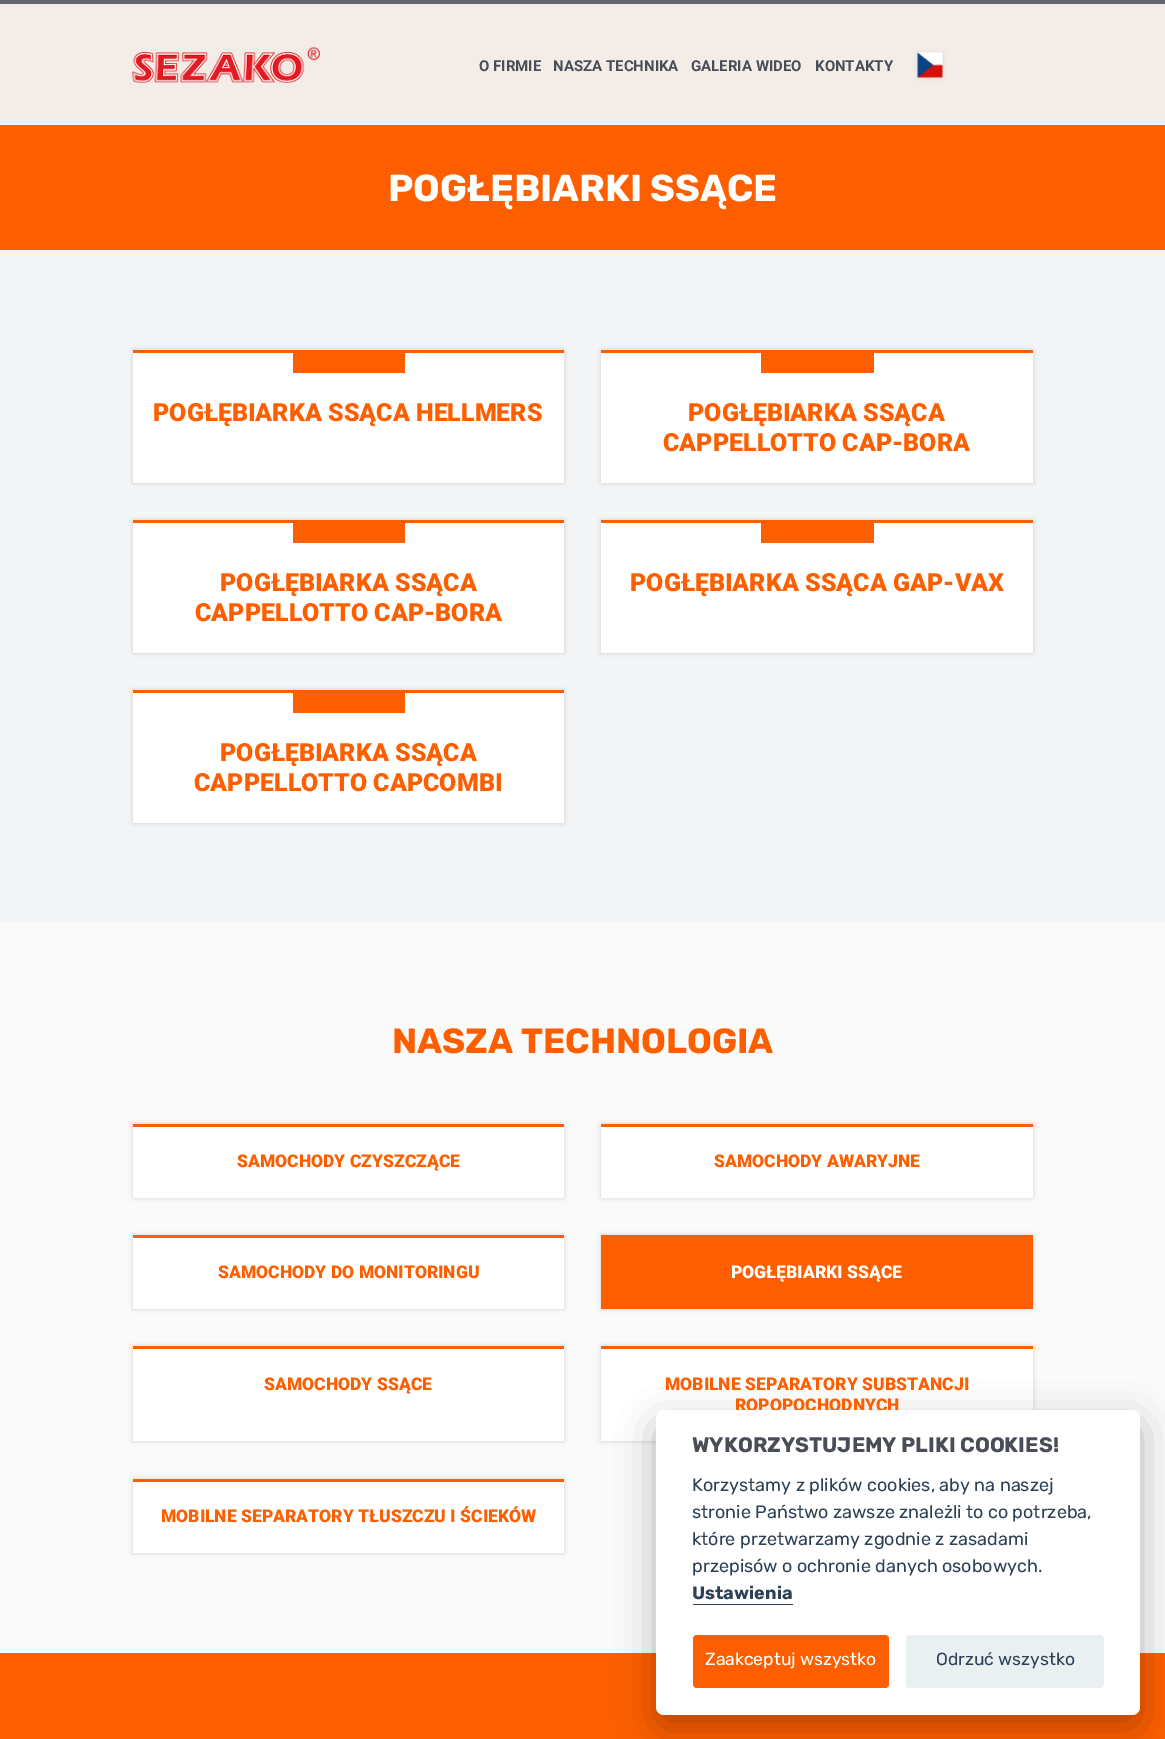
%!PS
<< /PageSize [1165 1739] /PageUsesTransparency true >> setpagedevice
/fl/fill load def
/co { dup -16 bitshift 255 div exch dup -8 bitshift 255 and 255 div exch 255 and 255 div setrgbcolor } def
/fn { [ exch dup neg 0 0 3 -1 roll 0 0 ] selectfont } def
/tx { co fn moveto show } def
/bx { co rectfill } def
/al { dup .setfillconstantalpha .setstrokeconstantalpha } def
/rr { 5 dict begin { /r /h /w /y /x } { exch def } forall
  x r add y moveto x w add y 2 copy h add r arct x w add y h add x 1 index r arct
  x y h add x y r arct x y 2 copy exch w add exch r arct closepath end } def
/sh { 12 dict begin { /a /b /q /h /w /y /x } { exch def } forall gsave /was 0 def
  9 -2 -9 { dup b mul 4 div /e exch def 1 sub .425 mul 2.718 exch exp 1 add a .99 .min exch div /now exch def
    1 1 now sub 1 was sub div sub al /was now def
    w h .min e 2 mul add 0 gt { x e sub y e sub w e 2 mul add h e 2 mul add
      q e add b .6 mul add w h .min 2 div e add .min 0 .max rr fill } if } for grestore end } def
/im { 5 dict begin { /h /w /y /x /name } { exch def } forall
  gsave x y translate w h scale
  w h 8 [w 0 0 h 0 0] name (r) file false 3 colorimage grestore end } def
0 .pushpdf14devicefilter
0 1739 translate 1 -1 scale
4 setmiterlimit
0 0 1165 1739 16#F4F5F6 bx
0 4 1165 120 16#F3ECE7 bx
0 0 1165 4 16#616670 bx
0 124 1165 1 16#F1F3F5 bx
(media/1.raw) 132 47 188 36 im
16#000000 co
918 53 25 25 0 2 .1 sh
(media/2.raw) 917 52 26 26 im
0 125 1165 125 16#FD5F00 bx
16#000000 co
133 350 431 133 0 2.5 .15 sh
133 353 431 130 16#FFFFFF bx
133 350 431 3 16#FD5F00 bx
293 353 112 20 16#FD5F00 bx
16#000000 co
601 350 432 133 0 2.5 .15 sh
601 353 432 130 16#FFFFFF bx
601 350 432 3 16#FD5F00 bx
761 353 113 20 16#FD5F00 bx
16#000000 co
133 520 431 133 0 2.5 .15 sh
133 523 431 130 16#FFFFFF bx
133 520 431 3 16#FD5F00 bx
293 523 112 20 16#FD5F00 bx
16#000000 co
601 520 432 133 0 2.5 .15 sh
601 523 432 130 16#FFFFFF bx
601 520 432 3 16#FD5F00 bx
761 523 113 20 16#FD5F00 bx
16#000000 co
133 690 431 133 0 2.5 .15 sh
133 693 431 130 16#FFFFFF bx
133 690 431 3 16#FD5F00 bx
293 693 112 20 16#FD5F00 bx
0 923 1165 730 16#FAFAFA bx
16#000000 co
133 1124 431 74 0 2.5 .15 sh
133 1127 431 71 16#FFFFFF bx
133 1124 431 3 16#FD5F00 bx
16#000000 co
601 1124 432 74 0 2.5 .15 sh
601 1127 432 71 16#FFFFFF bx
601 1124 432 3 16#FD5F00 bx
16#000000 co
133 1235 431 74 0 2.5 .15 sh
133 1238 431 71 16#FFFFFF bx
133 1235 431 3 16#FD5F00 bx
16#000000 co
601 1235 432 74 0 2.5 .15 sh
601 1235 432 74 16#FD5F00 bx
16#000000 co
133 1346 431 95 0 2.5 .15 sh
133 1349 431 92 16#FFFFFF bx
133 1346 431 3 16#FD5F00 bx
16#000000 co
601 1346 432 95 0 2.5 .15 sh
601 1349 432 92 16#FFFFFF bx
601 1346 432 3 16#FD5F00 bx
16#000000 co
133 1479 431 74 0 2.5 .15 sh
133 1482 431 71 16#FFFFFF bx
133 1479 431 3 16#FD5F00 bx
0 1653 1165 86 16#FD5F00 bx
16#020203 co
656 1423 484 305 8 19 .28 sh
(O FIRMIE) 479 71 /Roboto-Bold 15 16#494D55 tx
(NASZA TECHNIKA) 553 71 /Roboto-Bold 15 16#494D55 tx
(GALERIA WIDEO) 691 71 /Roboto-Bold 15 16#494D55 tx
(KONTAKTY) 815 71 /Roboto-Bold 15 16#494D55 tx
(POGŁĘBIARKI SSĄCE) 388 201 /Rubik-Bold 37.5 16#FFFFFF tx
(POGŁĘBIARKA SSĄCA HELLMERS) 153 421 /Roboto-Black 25 16#FD5F00 tx
(POGŁĘBIARKA SSĄCA) 688 421 /Roboto-Black 25 16#FD5F00 tx
(CAPPELLOTTO CAP-BORA) 663 451 /Roboto-Black 25 16#FD5F00 tx
(POGŁĘBIARKA SSĄCA) 220 591 /Roboto-Black 25 16#FD5F00 tx
(CAPPELLOTTO CAP-BORA) 195 621 /Roboto-Black 25 16#FD5F00 tx
(POGŁĘBIARKA SSĄCA GAP-VAX) 630 591 /Roboto-Black 25 16#FD5F00 tx
(POGŁĘBIARKA SSĄCA) 220 761 /Roboto-Black 25 16#FD5F00 tx
(CAPPELLOTTO CAPCOMBI) 194 791 /Roboto-Black 25 16#FD5F00 tx
(NASZA TECHNOLOGIA) 392 1053 /Rubik-Bold 35 16#FD5F00 tx
(SAMOCHODY CZYSZCZĄCE) 237 1167 /Roboto-Black 17.5 16#FD5F00 tx
(SAMOCHODY AWARYJNE) 714 1167 /Roboto-Black 17.5 16#FD5F00 tx
(SAMOCHODY DO MONITORINGU) 218 1278 /Roboto-Black 17.5 16#FD5F00 tx
(POGŁĘBIARKI SSĄCE) 731 1278 /Roboto-Black 17.5 16#FFFFFF tx
(SAMOCHODY SSĄCE) 264 1390 /Roboto-Black 17.5 16#FD5F00 tx
(MOBILNE SEPARATORY SUBSTANCJI) 665 1390 /Roboto-Black 17.5 16#FD5F00 tx
(ROPOPOCHODNYCH) 735 1411 /Roboto-Black 17.5 16#FD5F00 tx
(MOBILNE SEPARATORY TŁUSZCZU I ŚCIEKÓW) 161 1522 /Roboto-Black 17.5 16#FD5F00 tx
16#FFFFFF co
656 1410 484 305 8 rr fl
(WYKORZYSTUJEMY PLIKI COOKIES!) 692 1452 /Rubik-Bold 21 16#494D55 tx
(Korzystamy z plików cookies, aby na naszej) 692 1491 /Rubik-Regular 18 16#2D4156 tx
(stronie Państwo zawsze znależli to co potrzeba,) 692 1518 /Rubik-Regular 18 16#2D4156 tx
(które przetwarzamy zgodnie z zasadami) 692 1545 /Rubik-Regular 18 16#2D4156 tx
(przepisów o ochronie danych osobowych.) 692 1572 /Rubik-Regular 18 16#2D4156 tx
(Ustawienia) 692 1599 /Rubik-Bold 18 16#2D4156 tx
693 1604 100 1 16#2D4156 bx
16#FD5F00 co
693 1635 196 53 4 rr fl
(Zaakceptuj wszystko) 705 1665 /Rubik-Regular 17.5 16#FFFFFF tx
16#EAEFF2 co
906 1635 198 53 4 rr fl
(Odrzuć wszystko) 936 1665 /Rubik-Regular 17.5 16#2D4156 tx
.poppdf14devicefilter showpage
